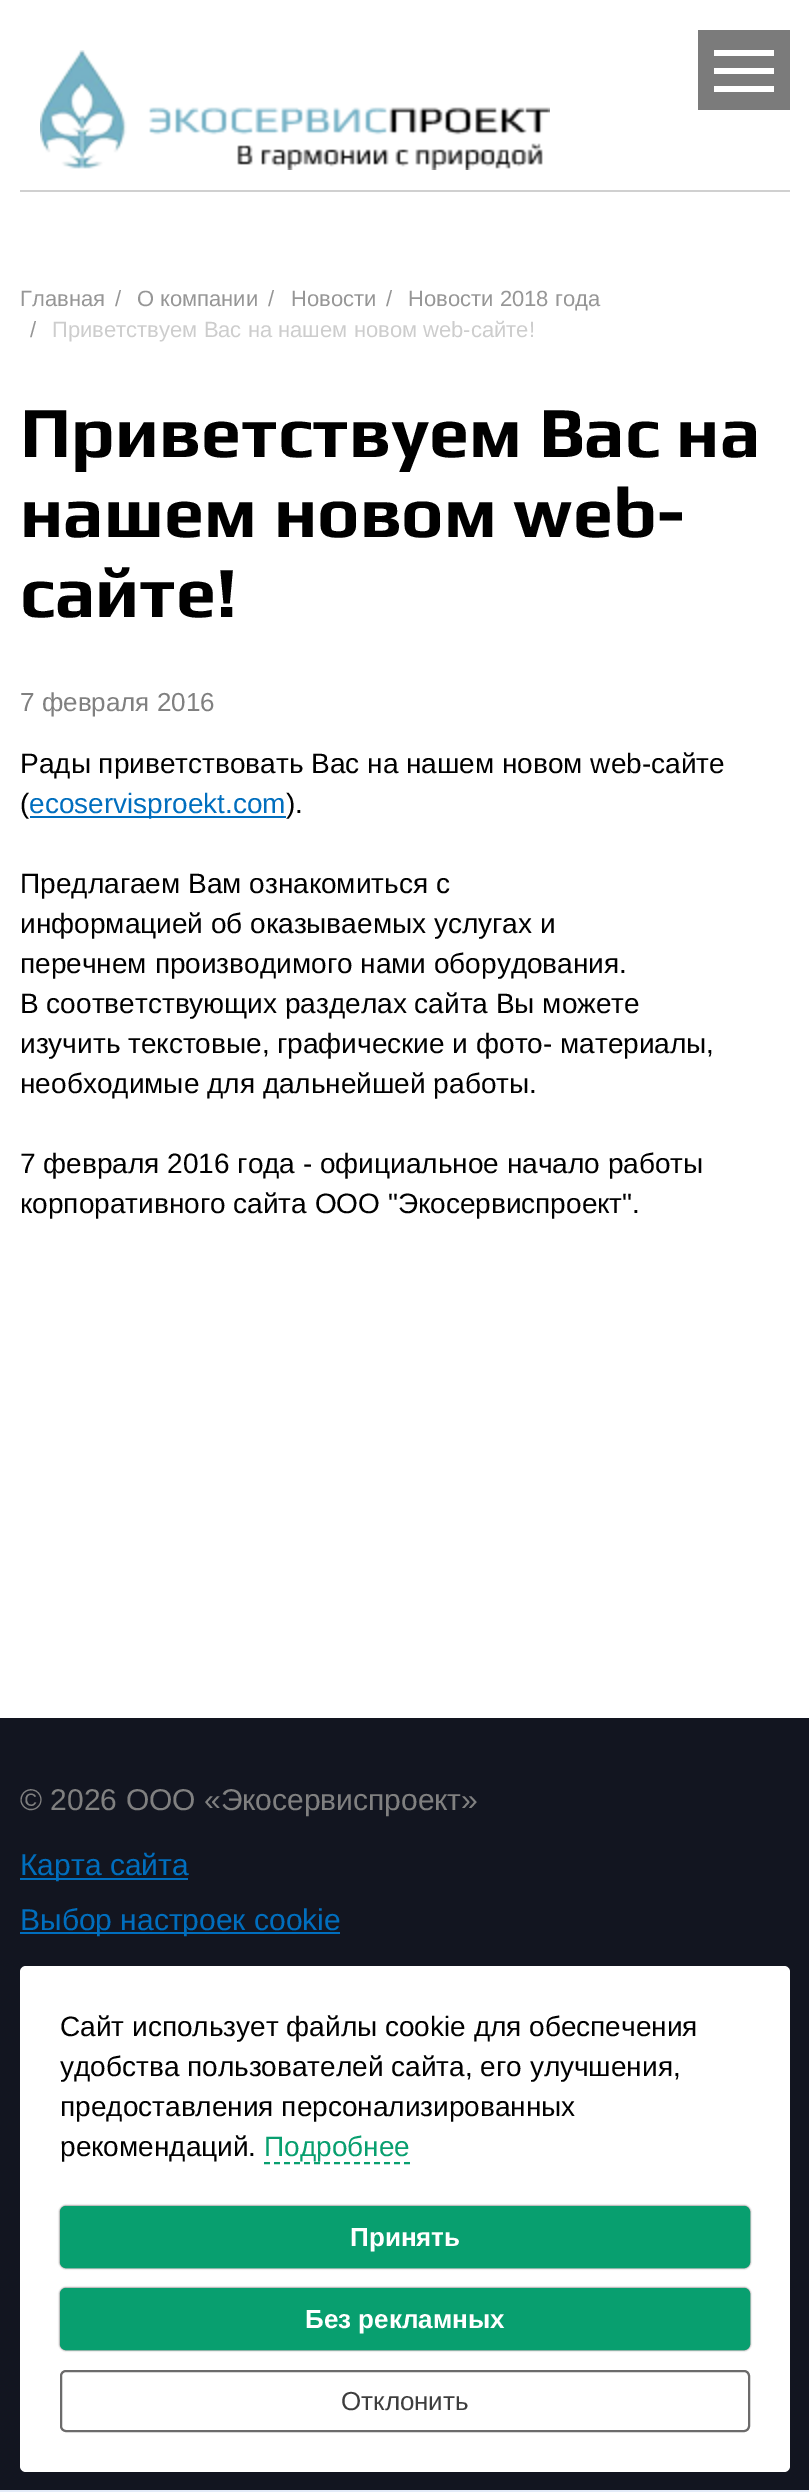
%!PS
<< /PageSize [809 2492] /PageUsesTransparency true >> setpagedevice
/mt/moveto load def
/li/lineto load def
/fl/fill load def
/st/stroke load def
/gs/gsave load def
/gr/grestore load def
/lw/setlinewidth load def
/co { dup -16 bitshift 255 div exch dup -8 bitshift 255 and 255 div exch 255 and 255 div setrgbcolor } def
/fn { [ exch dup neg 0 0 3 -1 roll 0 0 ] selectfont } def
/tx { co fn moveto show } def
/bx { co rectfill } def
/al { dup .setfillconstantalpha .setstrokeconstantalpha } def
/rr { 5 dict begin { /r /h /w /y /x } { exch def } forall
  x r add y moveto x w add y 2 copy h add r arct x w add y h add x 1 index r arct
  x y h add x y r arct x y 2 copy exch w add exch r arct closepath end } def
/sh { 12 dict begin { /a /b /q /h /w /y /x } { exch def } forall gsave /was 0 def
  9 -2 -9 { dup b mul 4 div /e exch def 1 sub .425 mul 2.718 exch exp 1 add a .99 .min exch div /now exch def
    1 1 now sub 1 was sub div sub al /was now def
    w h .min e 2 mul add 0 gt { x e sub y e sub w e 2 mul add h e 2 mul add
      q e add b .6 mul add w h .min 2 div e add .min 0 .max rr fill } if } for grestore end } def
/im { 5 dict begin { /h /w /y /x /name } { exch def } forall
  gsave x y translate w h scale
  w h 8 [w 0 0 h 0 0] name (r) file false 3 colorimage grestore end } def
0 .pushpdf14devicefilter
0 2492 translate 1 -1 scale
4 setmiterlimit
0 0 809 2492 16#E3EBF8 bx
0 0 809 1718 16#FFFFFF bx
20 190 770 2 16#D0D0D0 bx
(media/1.raw) 40 50 510 120 im
698 30 92 80 16#7B7B7B bx
714 50 60 6 16#FFFFFF bx
714 68 60 6 16#FFFFFF bx
714 86 60 6 16#FFFFFF bx
30 816 256 2 16#006EBE bx
0 1718 809 772 16#121520 bx
20 1878 168 2 16#006EBE bx
20 1932 320 2 16#006EBE bx
16#FFFFFF co
20 1966 770 506 6 rr fl
16#089F6F co
2 lw
[6 4] 0 setdash
264 2163 mt 410 2163 li st
16#000000 co
60 2206 690 62 6 1 .8 sh
16#089F6F co
61 2207 688 60 5 rr gs fl gr
[] 0 setdash
st
16#000000 co
60 2288 690 62 6 1 .8 sh
16#089F6F co
61 2289 688 60 5 rr gs fl gr
st
16#6C6B6B co
61 2371 688 60 5 rr st
(Главная) 20 306 /LiberationSans-Regular 22 16#969696 tx
(/) 115 306 /LiberationSans-Regular 22 16#969696 tx
(O компании) 137 306 /LiberationSans-Regular 22 16#969696 tx
(/) 268 306 /LiberationSans-Regular 22 16#969696 tx
(Новости) 291 306 /LiberationSans-Regular 22 16#969696 tx
(/) 386 306 /LiberationSans-Regular 22 16#969696 tx
(Новости 2018 года) 408 306 /LiberationSans-Regular 22 16#969696 tx
(/) 30 337 /LiberationSans-Regular 22 16#969696 tx
(Приветствуем Вас на нашем новом web-сайте!) 52 337 /LiberationSans-Regular 22 16#CDCDCD tx
(Приветствуем Вас на) 20 457 /Play-Bold 72 16#000000 tx
(нашем новом web-) 20 537 /Play-Bold 72 16#000000 tx
(сайте!) 20 617 /Play-Bold 72 16#000000 tx
(7 февраля 2016) 20 711 /LiberationSans-Regular 26 16#808080 tx
(Рады приветствовать Вас на нашем новом web-сайте) 20 773 /LiberationSans-Regular 28 16#000000 tx
(\() 20 813 /LiberationSans-Regular 28 16#000000 tx
(ecoservisproekt.com) 29 813 /LiberationSans-Regular 28 16#006EBE tx
(\).) 286 813 /LiberationSans-Regular 28 16#000000 tx
(Предлагаем Вам ознакомиться с) 20 893 /LiberationSans-Regular 28 16#000000 tx
(информацией об оказываемых услугах и) 20 933 /LiberationSans-Regular 28 16#000000 tx
(перечнем производимого нами оборудования.) 20 973 /LiberationSans-Regular 28 16#000000 tx
(В соответствующих разделах сайта Вы можете) 20 1013 /LiberationSans-Regular 28 16#000000 tx
(изучить текстовые, графические и фото- материалы,) 20 1053 /LiberationSans-Regular 28 16#000000 tx
(необходимые для дальнейшей работы.) 20 1093 /LiberationSans-Regular 28 16#000000 tx
(7 февраля 2016 года - официальное начало работы) 20 1173 /LiberationSans-Regular 28 16#000000 tx
(корпоративного сайта ООО "Экосервиспроект".) 20 1213 /LiberationSans-Regular 28 16#000000 tx
(© 2026 ООО «Экосервиспроект») 20 1810 /LiberationSans-Regular 30 16#808080 tx
(Карта сайта) 20 1875 /LiberationSans-Regular 30 16#006EBE tx
(Выбор настроек cookie) 20 1930 /LiberationSans-Regular 30 16#006EBE tx
(Сайт использует файлы cookie для обеспечения) 60 2036 /LiberationSans-Regular 28 16#000000 tx
(удобства пользователей сайта, его улучшения,) 60 2076 /LiberationSans-Regular 28 16#000000 tx
(предоставления персонализированных) 60 2116 /LiberationSans-Regular 28 16#000000 tx
(рекомендаций.) 60 2156 /LiberationSans-Regular 28 16#000000 tx
(Подробнее) 264 2156 /LiberationSans-Regular 28 16#089F6F tx
(Принять) 350 2246 /LiberationSans-Bold 26 16#FFFFFF tx
(Без рекламных) 305 2328 /LiberationSans-Bold 26 16#FFFFFF tx
(Отклонить) 341 2410 /LiberationSans-Regular 26 16#3E3E3E tx
.poppdf14devicefilter showpage
